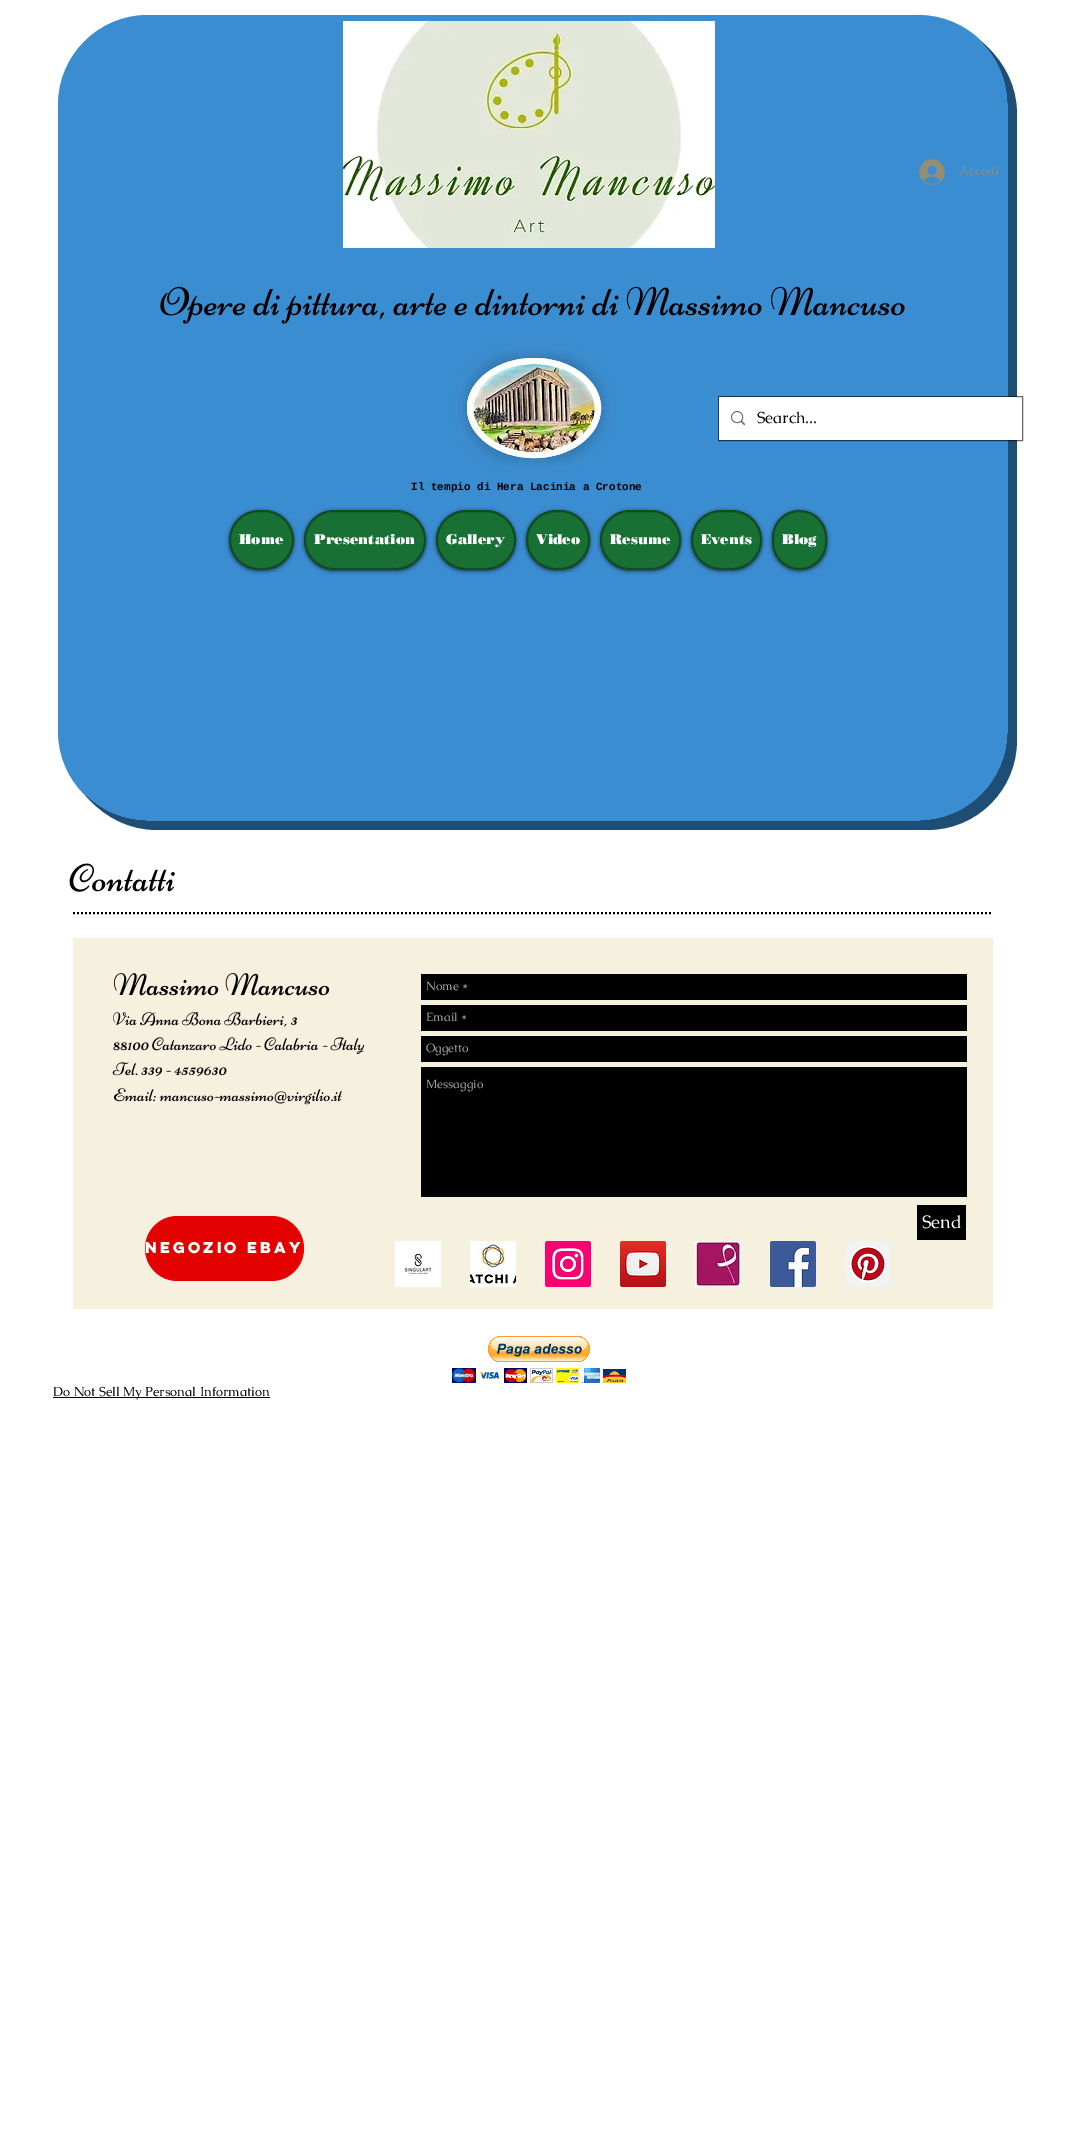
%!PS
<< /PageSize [1066 2145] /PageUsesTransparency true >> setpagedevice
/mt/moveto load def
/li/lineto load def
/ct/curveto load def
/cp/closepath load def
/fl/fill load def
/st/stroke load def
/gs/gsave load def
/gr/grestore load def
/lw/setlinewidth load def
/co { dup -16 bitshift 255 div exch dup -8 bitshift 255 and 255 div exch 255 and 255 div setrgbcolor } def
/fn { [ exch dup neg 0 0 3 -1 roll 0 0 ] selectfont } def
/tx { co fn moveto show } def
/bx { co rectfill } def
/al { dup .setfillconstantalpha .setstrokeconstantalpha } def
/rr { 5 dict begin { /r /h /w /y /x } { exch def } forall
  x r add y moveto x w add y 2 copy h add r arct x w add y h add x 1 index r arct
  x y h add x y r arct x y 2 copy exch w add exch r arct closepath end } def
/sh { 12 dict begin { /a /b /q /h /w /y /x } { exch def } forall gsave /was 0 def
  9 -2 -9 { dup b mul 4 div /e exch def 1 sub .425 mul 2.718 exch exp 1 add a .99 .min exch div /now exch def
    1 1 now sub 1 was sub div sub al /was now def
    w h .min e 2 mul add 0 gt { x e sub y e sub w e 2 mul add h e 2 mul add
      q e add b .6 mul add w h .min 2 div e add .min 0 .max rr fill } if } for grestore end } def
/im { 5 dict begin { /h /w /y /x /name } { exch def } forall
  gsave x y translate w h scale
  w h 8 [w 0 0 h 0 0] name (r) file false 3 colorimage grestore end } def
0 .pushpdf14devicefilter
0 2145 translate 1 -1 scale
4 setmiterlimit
0 0 1066 2145 16#FFFFFF bx
16#3D9BE9 co
58 15 950 806 90 rr fl
16#1F4E75 co
89 799 mt 106 818 130 830 157 830 ct 927 830 li 977 830 1017 790 1017 740 ct 1017 114 li 1017 87 1005 63 986 46 ct 1000 62 1008 82 1008 105 ct 1008 731 li 1008 781 968 821 918 821 ct 148 821 li 125 821 105 813 89 799 ct cp fl
88 798 mt 104 816 128 828 155 828 ct 925 828 li 975 828 1015 788 1015 738 ct 1015 112 li 1015 85 1003 61 985 45 ct 999 61 1008 82 1008 105 ct 1008 731 li 1008 781 968 821 918 821 ct 148 821 li 125 821 104 812 88 798 ct cp fl
87 797 mt 103 815 127 826 153 826 ct 923 826 li 973 826 1013 786 1013 736 ct 1013 110 li 1013 84 1002 60 984 44 ct 999 60 1008 81 1008 105 ct 1008 731 li 1008 781 968 821 918 821 ct 148 821 li 124 821 103 812 87 797 ct cp fl
86 796 mt 102 813 125 824 151 824 ct 921 824 li 971 824 1011 784 1011 734 ct 1011 108 li 1011 82 1000 59 983 43 ct 999 59 1008 81 1008 105 ct 1008 731 li 1008 781 968 821 918 821 ct 148 821 li 124 821 102 812 86 796 ct cp fl
85 795 mt 101 812 124 822 149 822 ct 919 822 li 969 822 1009 782 1009 732 ct 1009 106 li 1009 81 999 58 982 42 ct 998 58 1008 80 1008 105 ct 1008 731 li 1008 781 968 821 918 821 ct 148 821 li 123 821 101 811 85 795 ct cp fl
0.13 al
16#2F2E2E co
58 15 950 806 90 rr fl
1 al
(media/1.raw) 343 21 372 227 im
(media/2.raw) 919 159 26 26 im
(media/3.raw) 160 286 745 38 im
16#000000 co
467 358 134 100 50 7 .2 sh
16#FFFFFF co
534 358 mt 571 358 601 380.5 601 408 ct 601 435.5 571 458 534 458 ct 497 458 467 435.5 467 408 ct 467 380.5 497 358 534 358 ct cp fl
6 lw
534 361 mt 569.5 361 598 382 598 408 ct 598 434 569.5 455 534 455 ct 498.5 455 470 434 470 408 ct 470 382 498.5 361 534 361 ct cp st
(media/4.raw) 473 364 122 88 im
0.6 al
16#000000 co
1 lw
718.5 396.5 304 44 rectstroke
1 al
719 397 298 43 16#FFFFFF bx
(media/5.raw) 731 411 14 15 im
16#000000 co
229 511 65 60 30 2 .6 sh
16#187035 co
230 511 63 58 29 rr gs fl gr
16#114C22 co
2 lw
st
16#000000 co
304 511 122 60 30 2 .6 sh
16#187035 co
305 511 120 58 29 rr gs fl gr
16#114C22 co
st
16#000000 co
436 511 80 60 30 2 .6 sh
16#187035 co
437 511 78 58 29 rr gs fl gr
16#114C22 co
st
16#000000 co
526 511 64 60 30 2 .6 sh
16#187035 co
527 511 62 58 29 rr gs fl gr
16#114C22 co
st
16#000000 co
600 511 81 60 30 2 .6 sh
16#187035 co
601 511 79 58 29 rr gs fl gr
16#114C22 co
st
16#000000 co
691 511 71 60 30 2 .6 sh
16#187035 co
692 511 69 58 29 rr gs fl gr
16#114C22 co
st
16#000000 co
772 511 55 60 27.5 2 .6 sh
16#187035 co
773 511 53 58 26.5 rr gs fl gr
16#114C22 co
st
(media/6.raw) 69 863 106 29 im
16#000000 co
[2 2] 0 setdash
73 913 mt 993 913 li st
73 938 920 371 16#F6F0DF bx
(media/7.raw) 113 973 217 23 im
(media/8.raw) 113 1011 171 15 im
(media/9.raw) 284 1017 13 10 im
(media/10.raw) 113 1037 205 14 im
(media/11.raw) 322 1037 43 17 im
(media/12.raw) 112 1062 115 14 im
(media/13.raw) 114 1088 42 14 im
(media/14.raw) 159 1089 183 16 im
421 974 546 26 16#000000 bx
421 1005 546 26 16#000000 bx
421 1036 546 26 16#000000 bx
421 1067 546 130 16#000000 bx
917 1205 49 35 16#000000 bx
16#E40101 co
145 1216 159 65 32.5 rr fl
(media/15.raw) 395 1241 46 46 im
(media/16.raw) 470 1241 46 46 im
(media/17.raw) 545 1241 46 46 im
(media/18.raw) 620 1241 46 46 im
(media/19.raw) 695 1241 46 46 im
(media/20.raw) 770 1241 46 46 im
(media/21.raw) 845 1241 46 46 im
(media/22.raw) 452 1336 174 47 im
53 1397 217 1 16#000000 bx
(Accedi) 959 175 /Caudex-Regular 13 16#948D78 tx
(Search...) 757 423 /Caudex-Regular 16 16#000000 tx
(Il tempio di Hera Lacinia a Crotone) 411 490 /LiberationMono-Bold 11 16#000000 tx
(Home) 239 544 /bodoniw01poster-Black 14 16#FFFFFF tx
(Presentation) 314 544 /bodoniw01poster-Black 14 16#FFFFFF tx
(Gallery) 446 544 /bodoniw01poster-Black 14 16#FFFFFF tx
(Video) 536 544 /bodoniw01poster-Black 14 16#FFFFFF tx
(Resume) 610 544 /bodoniw01poster-Black 14 16#FFFFFF tx
(Events) 701 544 /bodoniw01poster-Black 14 16#FFFFFF tx
(Blog) 782 544 /bodoniw01poster-Black 14 16#FFFFFF tx
(Nome *) 426 990 /Caudex-Regular 12 16#A9A9A9 tx
(Email *) 426 1021 /Caudex-Regular 12 16#A9A9A9 tx
(Oggetto) 426 1052 /Caudex-Regular 12 16#A9A9A9 tx
(Messaggio) 426 1088 /Caudex-Regular 12 16#A9A9A9 tx
(Send) 922 1228 /Caudex-Regular 18 16#FFFFFF tx
(Negozio EBAY) 145 1253 /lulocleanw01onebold-Bold 14 16#FFFFFF tx
(Do Not Sell My Personal Information) 53 1396 /Caudex-Regular 13 16#000000 tx
.poppdf14devicefilter showpage
